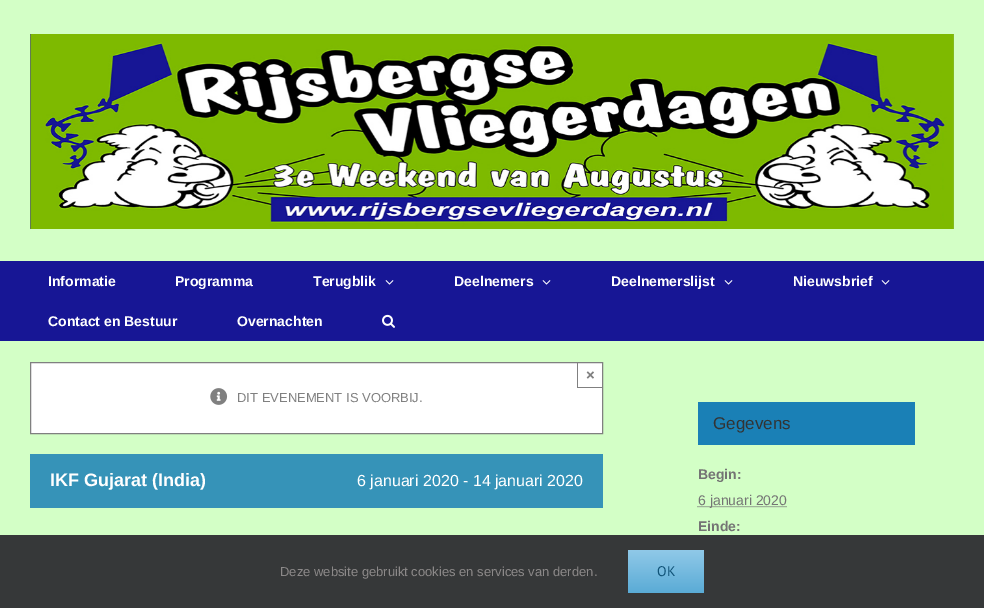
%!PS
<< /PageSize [984 608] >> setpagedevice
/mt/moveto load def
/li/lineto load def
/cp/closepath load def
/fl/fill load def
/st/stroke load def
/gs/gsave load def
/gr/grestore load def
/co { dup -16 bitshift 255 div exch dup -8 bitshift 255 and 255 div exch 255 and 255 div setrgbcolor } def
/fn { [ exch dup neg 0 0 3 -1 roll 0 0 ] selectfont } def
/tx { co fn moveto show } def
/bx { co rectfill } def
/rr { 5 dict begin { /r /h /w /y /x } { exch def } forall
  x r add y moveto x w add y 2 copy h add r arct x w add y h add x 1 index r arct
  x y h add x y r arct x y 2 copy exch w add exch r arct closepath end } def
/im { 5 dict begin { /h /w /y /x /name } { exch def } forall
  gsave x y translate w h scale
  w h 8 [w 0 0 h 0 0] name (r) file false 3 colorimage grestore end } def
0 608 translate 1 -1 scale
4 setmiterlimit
0 0 984 608 16#D3FFC6 bx
(media/1.raw) 30 34 924 195 im
0 261 984 80 16#171695 bx
(media/2.raw) 385 280 9 5 im
(media/2.raw) 542 280 9 5 im
(media/2.raw) 724 280 9 5 im
(media/2.raw) 881 280 9 5 im
(media/3.raw) 382 314 13 14 im
16#FFFFFF co
30.5 362.5 mt 602.5 362.5 li 602.5 433.5 li 30.5 433.5 li cp gs fl gr
16#808080 co
st
577 387 26 1 16#808080 bx
577 362 1 26 16#808080 bx
(media/4.raw) 210 388 18 17 im
30 454 573 54 16#3693B8 bx
698 402 217 43 16#1A80B6 bx
16#747474 co
[1 1] 0 setdash
697.5 506.5 mt 786.5 506.5 li st
0 535 984 73 16#363839 bx
gs 628 550 76 43 2 rr clip newpath
<< /ShadingType 2 /ColorSpace /DeviceRGB /Coords [666 550 666 593] /Extend [true true] /Function << /FunctionType 2 /Domain [0 1] /C0 [.565 .788 .91] /C1 [.353 .671 .839] /N 1 >> >> shfill gr
(Informatie) 48 286 /LiberationSans-Bold 14 16#FFFFFF tx
(Programma) 175 286 /LiberationSans-Bold 14 16#FFFFFF tx
(Terugblik) 313 286 /LiberationSans-Bold 14 16#FFFFFF tx
(Deelnemers) 454 286 /LiberationSans-Bold 14 16#FFFFFF tx
(Deelnemerslijst) 611 286 /LiberationSans-Bold 14 16#FFFFFF tx
(Nieuwsbrief) 793 286 /LiberationSans-Bold 14 16#FFFFFF tx
(Contact en Bestuur) 48 326 /LiberationSans-Bold 14 16#FFFFFF tx
(Overnachten) 237 326 /LiberationSans-Bold 14 16#FFFFFF tx
(×) 586 380 /LiberationSans-Bold 15 16#808080 tx
(DIT EVENEMENT IS VOORBIJ.) 237 402 /LiberationSans-Regular 13 16#808080 tx
(IKF Gujarat \(India\)) 50 486 /LiberationSans-Bold 18 16#FFFFFF tx
(6 januari 2020 - 14 januari 2020) 357 486 /LiberationSans-Regular 16 16#FFFFFF tx
(Gegevens) 713 429 /LiberationSans-Regular 17 16#333333 tx
(Begin:) 698 479 /LiberationSans-Bold 14 16#747474 tx
(6 januari 2020) 698 505 /LiberationSans-Regular 14 16#747474 tx
(Einde:) 698 531 /LiberationSans-Bold 14 16#747474 tx
(Deze website gebruikt cookies en services van derden.) 280 576 /LiberationSans-Regular 13 16#8C8989 tx
(OK) 657 576 /PTSans-Regular 14 16#105378 tx
showpage
